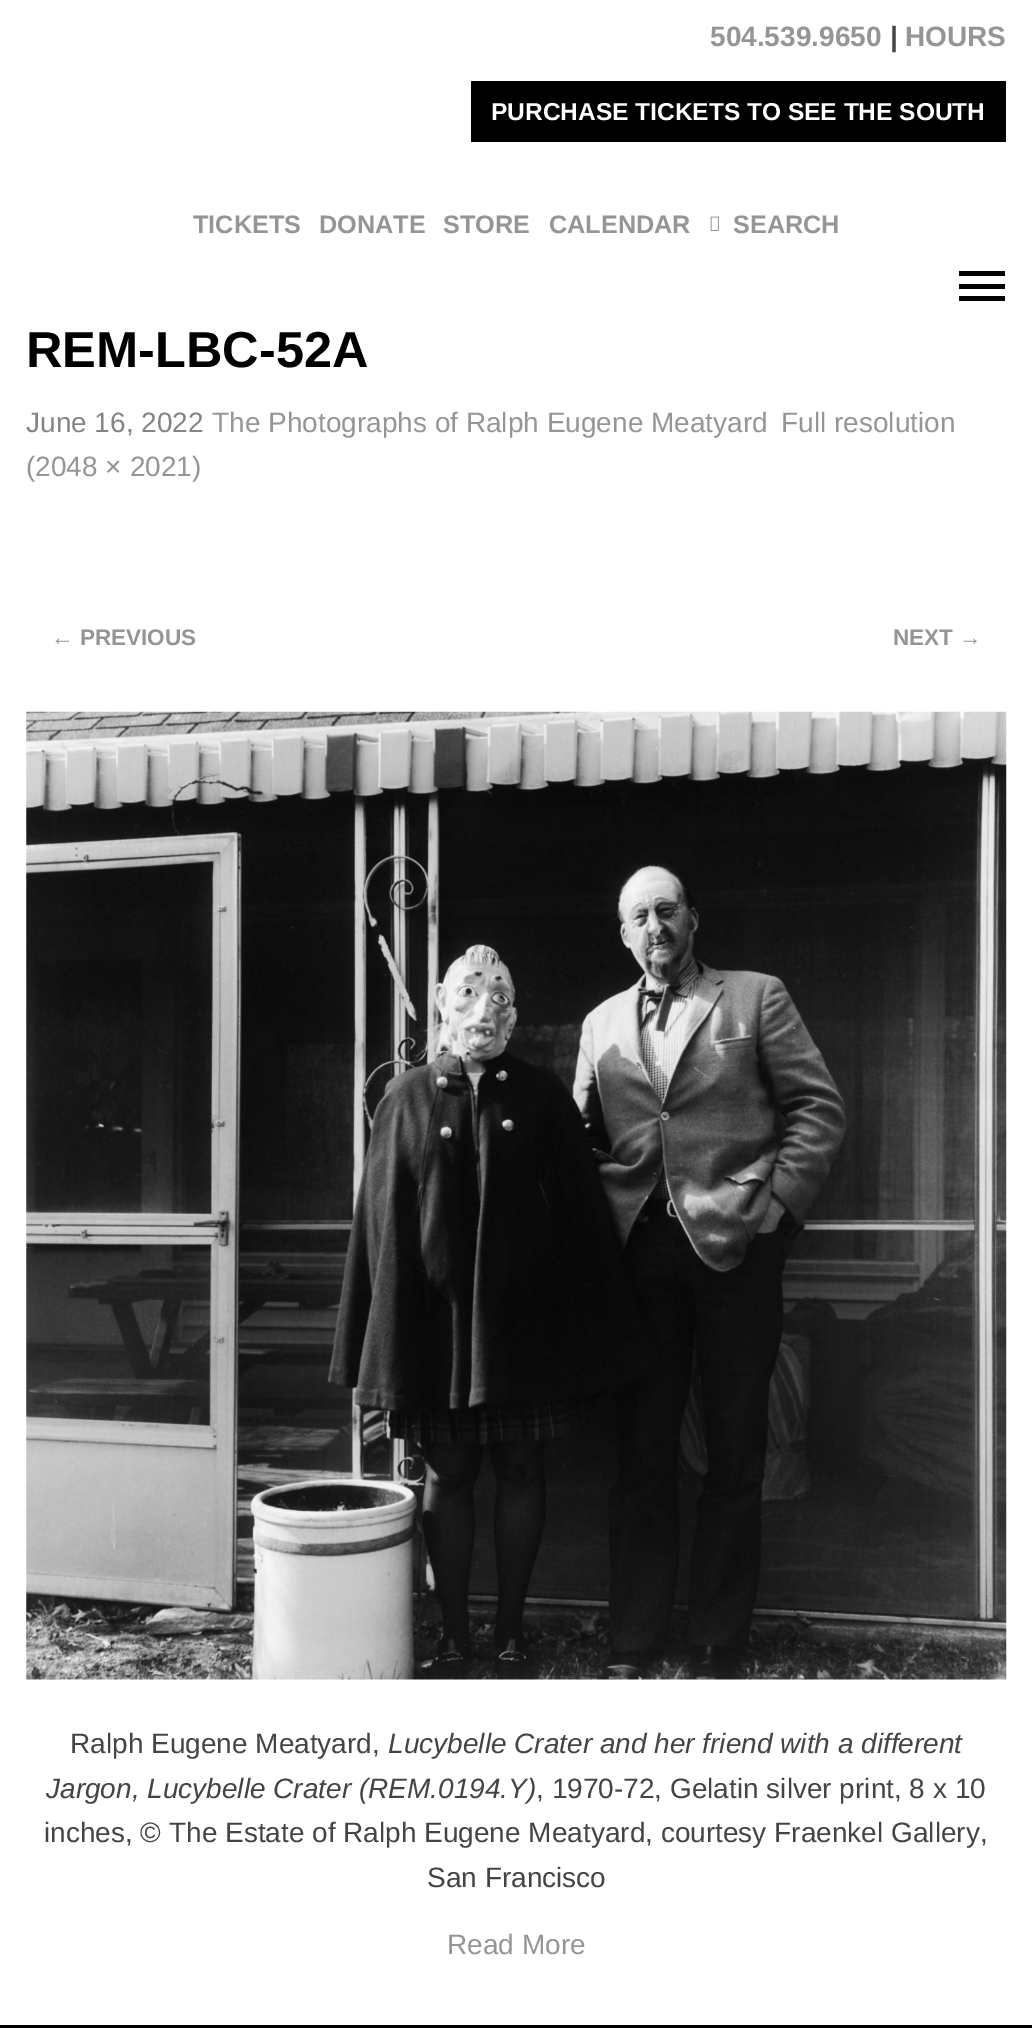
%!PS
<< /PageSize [1032 2028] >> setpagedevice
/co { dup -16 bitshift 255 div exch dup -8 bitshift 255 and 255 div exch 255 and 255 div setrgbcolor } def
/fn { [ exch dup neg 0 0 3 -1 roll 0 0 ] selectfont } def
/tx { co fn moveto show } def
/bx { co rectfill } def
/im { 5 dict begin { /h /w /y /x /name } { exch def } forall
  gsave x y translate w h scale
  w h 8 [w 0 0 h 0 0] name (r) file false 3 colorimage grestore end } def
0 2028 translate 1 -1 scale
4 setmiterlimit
0 0 1032 2028 16#FFFFFF bx
471 81 535 61 16#000000 bx
(media/1.raw) 710 216 9 15 im
959 271 46 5 16#000000 bx
959 284 46 5 16#000000 bx
959 296 46 5 16#000000 bx
(media/2.raw) 26 711 981 969 im
0 2025 1032 3 16#000000 bx
(504.539.9650) 710 46 /LiberationSans-Bold 28 16#939597 tx
(|) 890 46 /LiberationSans-Bold 28 16#444444 tx
(HOURS) 905 46 /LiberationSans-Bold 28 16#939597 tx
(PURCHASE TICKETS TO SEE THE SOUTH) 491 120 /LiberationSans-Bold 24.5 16#FFFFFF tx
(TICKETS) 193 233 /LiberationSans-Bold 25.25 16#939597 tx
(DONATE) 319 233 /LiberationSans-Bold 25.25 16#939597 tx
(STORE) 443 233 /LiberationSans-Bold 25.25 16#939597 tx
(CALENDAR) 549 233 /LiberationSans-Bold 25.25 16#939597 tx
(SEARCH) 733 233 /LiberationSans-Bold 25.25 16#939597 tx
(REM-LBC-52A) 26 367 /LiberationSans-Bold 50.5 16#000000 tx
(June 16, 2022) 26 432 /LiberationSans-Regular 28 16#848484 tx
(The Photographs of Ralph Eugene Meatyard) 212 432 /LiberationSans-Regular 28 16#939597 tx
(Full resolution) 781 432 /LiberationSans-Regular 28 16#939597 tx
(\(2048 × 2021\)) 26 476 /LiberationSans-Regular 28 16#939597 tx
(← PREVIOUS) 51 645 /LiberationSans-Bold 22.5 16#939597 tx
(NEXT →) 893 645 /LiberationSans-Bold 22.5 16#939597 tx
(Ralph Eugene Meatyard,) 70 1753 /LiberationSans-Regular 28 16#444444 tx
(Lucybelle Crater and her friend with a different) 388 1753 /LiberationSans-Italic 28 16#444444 tx
(Jargon, Lucybelle Crater \(REM.0194.Y\)) 46 1798 /LiberationSans-Italic 28 16#444444 tx
(, 1970-72, Gelatin silver print, 8 x 10) 536 1798 /LiberationSans-Regular 28 16#444444 tx
(inches, © The Estate of Ralph Eugene Meatyard, courtesy Fraenkel Gallery,) 44 1842 /LiberationSans-Regular 28 16#444444 tx
(San Francisco) 427 1887 /LiberationSans-Regular 28 16#444444 tx
(Read More) 447 1954 /LiberationSans-Regular 28 16#939597 tx
showpage
